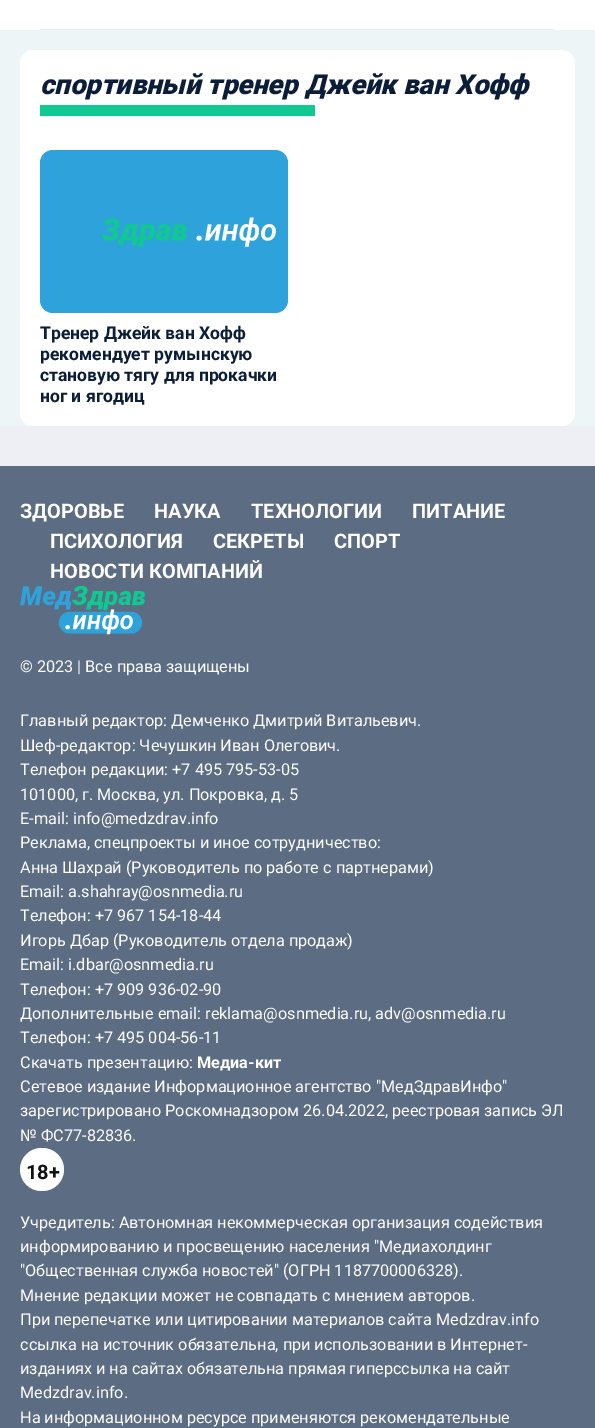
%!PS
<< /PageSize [595 1428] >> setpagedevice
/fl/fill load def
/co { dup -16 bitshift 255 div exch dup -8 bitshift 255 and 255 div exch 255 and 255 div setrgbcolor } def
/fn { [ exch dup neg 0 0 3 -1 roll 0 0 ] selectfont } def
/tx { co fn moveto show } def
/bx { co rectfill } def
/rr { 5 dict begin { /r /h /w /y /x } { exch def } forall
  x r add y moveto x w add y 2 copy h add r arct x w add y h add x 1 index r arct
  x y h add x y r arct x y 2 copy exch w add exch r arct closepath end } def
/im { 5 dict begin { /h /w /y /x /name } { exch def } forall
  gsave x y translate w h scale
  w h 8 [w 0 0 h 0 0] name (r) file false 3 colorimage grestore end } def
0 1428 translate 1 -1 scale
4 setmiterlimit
0 0 595 1428 16#EDF5F7 bx
0 0 595 30 16#FFFFFF bx
40 29 515 1 16#EDEFF4 bx
16#FFFFFF co
20 50 555 376 13 rr fl
40 105 275 11 16#10C891 bx
16#2DA2DB co
40 150 248 163 13 rr fl
(media/1.raw) 102 217 174 30 im
0 466 595 962 16#5C6C82 bx
0 426 595 40 16#EDEFF4 bx
(media/2.raw) 20 586 125 49 im
16#FFFFFF co
20 1148 44 43 21.5 rr fl
(спортивный тренер Джейк ван Хофф) 40 94 /Roboto-BlackItalic 27.5 16#0B1D38 tx
(Тренер Джейк ван Хофф) 40 339 /Roboto-Bold 17.5 16#0B1D38 tx
(рекомендует румынскую) 40 360 /Roboto-Bold 17.5 16#0B1D38 tx
(становую тягу для прокачки) 40 381 /Roboto-Bold 17.5 16#0B1D38 tx
(ног и ягодиц) 40 402 /Roboto-Bold 17.5 16#0B1D38 tx
(ЗДОРОВЬЕ) 20 518 /Roboto-Bold 20 16#FFFFFF tx
(НАУКА) 154 518 /Roboto-Bold 20 16#FFFFFF tx
(ТЕХНОЛОГИИ) 251 518 /Roboto-Bold 20 16#FFFFFF tx
(ПИТАНИЕ) 412 518 /Roboto-Bold 20 16#FFFFFF tx
(ПСИХОЛОГИЯ) 50 548 /Roboto-Bold 20 16#FFFFFF tx
(СЕКРЕТЫ) 213 548 /Roboto-Bold 20 16#FFFFFF tx
(СПОРТ) 334 548 /Roboto-Bold 20 16#FFFFFF tx
(НОВОСТИ КОМПАНИЙ) 50 578 /Roboto-Bold 20 16#FFFFFF tx
(© 2023 | Все права защищены) 20 672 /Roboto-Regular 16.25 16#FFFFFF tx
(Главный редактор: Демченко Дмитрий Витальевич.) 20 726 /Roboto-Regular 16.25 16#FFFFFF tx
(Шеф-редактор: Чечушкин Иван Олегович.) 20 751 /Roboto-Regular 16.25 16#FFFFFF tx
(Телефон редакции: +7 495 795-53-05) 20 775 /Roboto-Regular 16.25 16#FFFFFF tx
(101000, г. Москва, ул. Покровка, д. 5) 20 800 /Roboto-Regular 16.25 16#FFFFFF tx
(E-mail: info@medzdrav.info) 20 824 /Roboto-Regular 16.25 16#FFFFFF tx
(Реклама, спецпроекты и иное сотрудничество:) 20 848 /Roboto-Regular 16.25 16#FFFFFF tx
(Анна Шахрай \(Руководитель по работе с партнерами\)) 20 873 /Roboto-Regular 16.25 16#FFFFFF tx
(Email: a.shahray@osnmedia.ru) 20 897 /Roboto-Regular 16.25 16#FFFFFF tx
(Телефон: +7 967 154-18-44) 20 921 /Roboto-Regular 16.25 16#FFFFFF tx
(Игорь Дбар \(Руководитель отдела продаж\)) 20 946 /Roboto-Regular 16.25 16#FFFFFF tx
(Email: i.dbar@osnmedia.ru) 20 970 /Roboto-Regular 16.25 16#FFFFFF tx
(Телефон: +7 909 936-02-90) 20 995 /Roboto-Regular 16.25 16#FFFFFF tx
(Дополнительные email: reklama@osnmedia.ru, adv@osnmedia.ru) 20 1019 /Roboto-Regular 16.25 16#FFFFFF tx
(Телефон: +7 495 004-56-11) 20 1043 /Roboto-Regular 16.25 16#FFFFFF tx
(Скачать презентацию:) 20 1068 /Roboto-Regular 16.25 16#FFFFFF tx
(Медиа-кит) 197 1068 /Roboto-Bold 16.25 16#FFFFFF tx
(Сетевое издание Информационное агентство "МедЗдравИнфо") 20 1092 /Roboto-Regular 16.25 16#FFFFFF tx
(зарегистрировано Роскомнадзором 26.04.2022, реестровая запись ЭЛ) 20 1116 /Roboto-Regular 16.25 16#FFFFFF tx
(№ ФС77-82836.) 20 1141 /Roboto-Regular 16.25 16#FFFFFF tx
(18+) 26 1179 /Roboto-Bold 20 16#111111 tx
(Учредитель: Автономная некоммерческая организация содействия) 20 1228 /Roboto-Regular 16.25 16#FFFFFF tx
(информированию и просвещению населения "Медиахолдинг) 20 1252 /Roboto-Regular 16.25 16#FFFFFF tx
("Общественная служба новостей" \(ОГРН 1187700006328\).) 20 1276 /Roboto-Regular 16.25 16#FFFFFF tx
(Мнение редакции может не совпадать с мнением авторов.) 20 1301 /Roboto-Regular 16.25 16#FFFFFF tx
(При перепечатке или цитировании материалов сайта Medzdrav.info) 20 1325 /Roboto-Regular 16.25 16#FFFFFF tx
(ссылка на источник обязательна, при использовании в Интернет-) 20 1350 /Roboto-Regular 16.25 16#FFFFFF tx
(изданиях и на сайтах обязательна прямая гиперссылка на сайт) 20 1374 /Roboto-Regular 16.25 16#FFFFFF tx
(Medzdrav.info.) 20 1398 /Roboto-Regular 16.25 16#FFFFFF tx
(На информационном ресурсе применяются рекомендательные) 20 1423 /Roboto-Regular 16.25 16#FFFFFF tx
showpage
